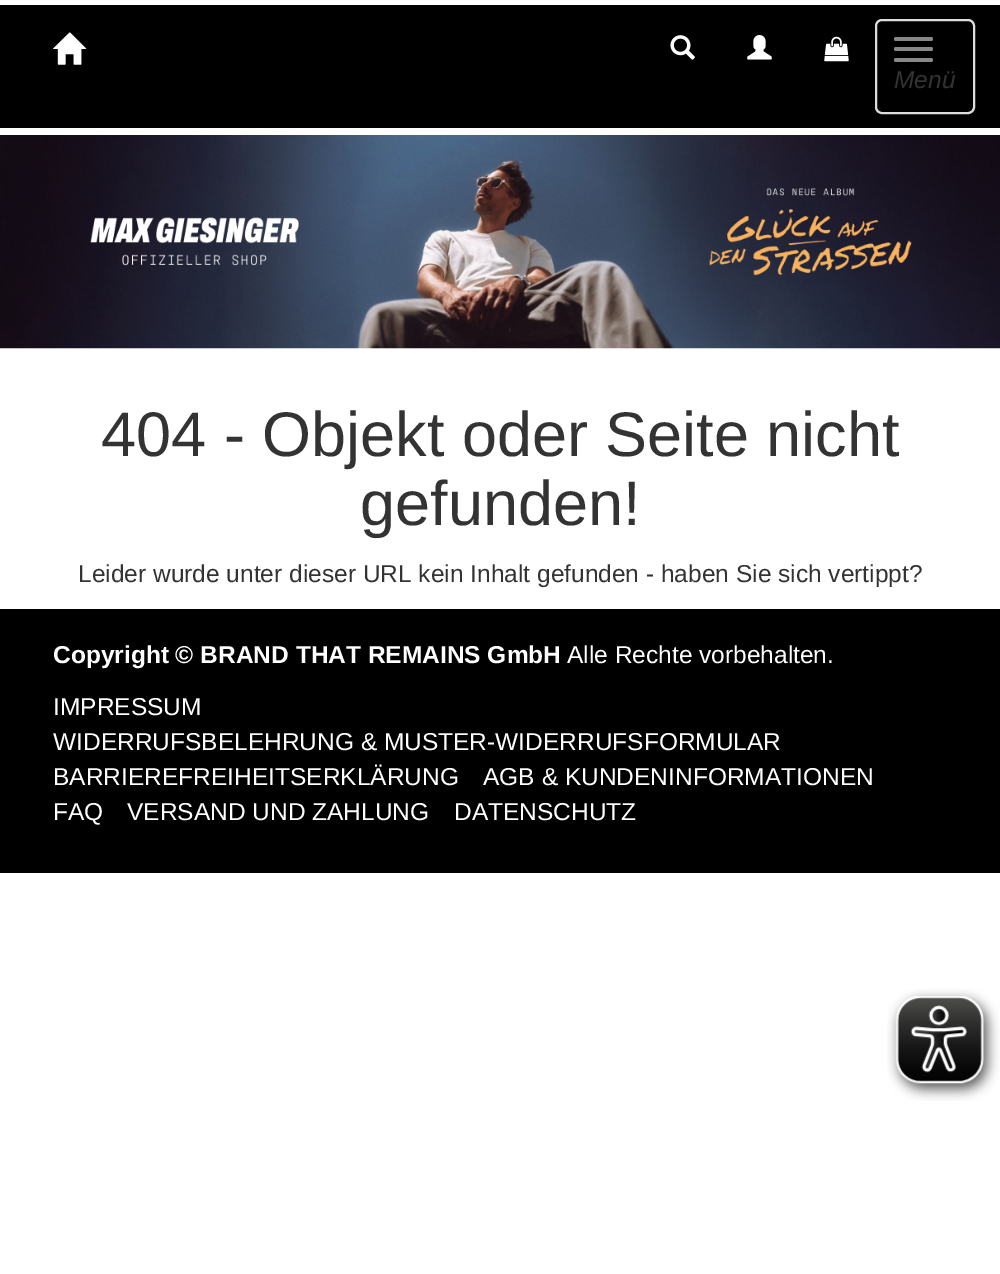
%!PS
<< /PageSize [1000 1274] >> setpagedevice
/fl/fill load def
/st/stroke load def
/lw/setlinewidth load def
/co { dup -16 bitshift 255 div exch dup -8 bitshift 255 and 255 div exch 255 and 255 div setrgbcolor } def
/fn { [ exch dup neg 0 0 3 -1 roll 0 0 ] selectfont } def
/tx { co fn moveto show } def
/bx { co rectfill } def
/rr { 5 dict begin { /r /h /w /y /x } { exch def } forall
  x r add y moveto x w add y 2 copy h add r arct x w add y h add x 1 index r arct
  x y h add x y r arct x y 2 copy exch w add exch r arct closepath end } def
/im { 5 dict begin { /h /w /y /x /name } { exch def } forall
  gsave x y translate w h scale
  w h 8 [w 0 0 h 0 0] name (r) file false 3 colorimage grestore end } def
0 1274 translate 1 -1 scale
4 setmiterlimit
0 0 1000 1274 16#FFFFFF bx
0 5 1000 123 16#000000 bx
(media/1.raw) 53 32 34 33 im
(media/2.raw) 670 35 25 25 im
(media/3.raw) 747 35 25 25 im
(media/4.raw) 824 36 25 26 im
16#DDDDDD co
2 lw
876 20 98 93 6 rr st
16#888888 co
894 37 39 4 2 rr fl
894 47 39 4 2 rr fl
894 58 39 4 2 rr fl
(media/5.raw) 0 135 1000 214 im
0 609 1000 264 16#000000 bx
(media/6.raw) 887 989 113 112 im
(Menü) 894 88 /LiberationSans-Italic 24.5 16#333333 tx
(404 - Objekt oder Seite nicht) 101 456 /LiberationSans-Regular 63 16#333333 tx
(gefunden!) 360 525 /LiberationSans-Regular 63 16#333333 tx
(Leider wurde unter dieser URL kein Inhalt gefunden - haben Sie sich vertippt?) 78 582 /LiberationSans-Regular 24.5 16#333333 tx
(Copyright © BRAND THAT REMAINS GmbH) 53 663 /LiberationSans-Bold 24.5 16#FFFFFF tx
(Alle Rechte vorbehalten.) 567 663 /LiberationSans-Regular 24.5 16#FFFFFF tx
(IMPRESSUM) 53 715 /LiberationSans-Regular 24.5 16#FFFFFF tx
(WIDERRUFSBELEHRUNG & MUSTER-WIDERRUFSFORMULAR) 53 750 /LiberationSans-Regular 24.5 16#FFFFFF tx
(BARRIEREFREIHEITSERKLÄRUNG) 53 785 /LiberationSans-Regular 24.5 16#FFFFFF tx
(AGB & KUNDENINFORMATIONEN) 483 785 /LiberationSans-Regular 24.5 16#FFFFFF tx
(FAQ) 53 820 /LiberationSans-Regular 24.5 16#FFFFFF tx
(VERSAND UND ZAHLUNG) 127 820 /LiberationSans-Regular 24.5 16#FFFFFF tx
(DATENSCHUTZ) 454 820 /LiberationSans-Regular 24.5 16#FFFFFF tx
showpage
